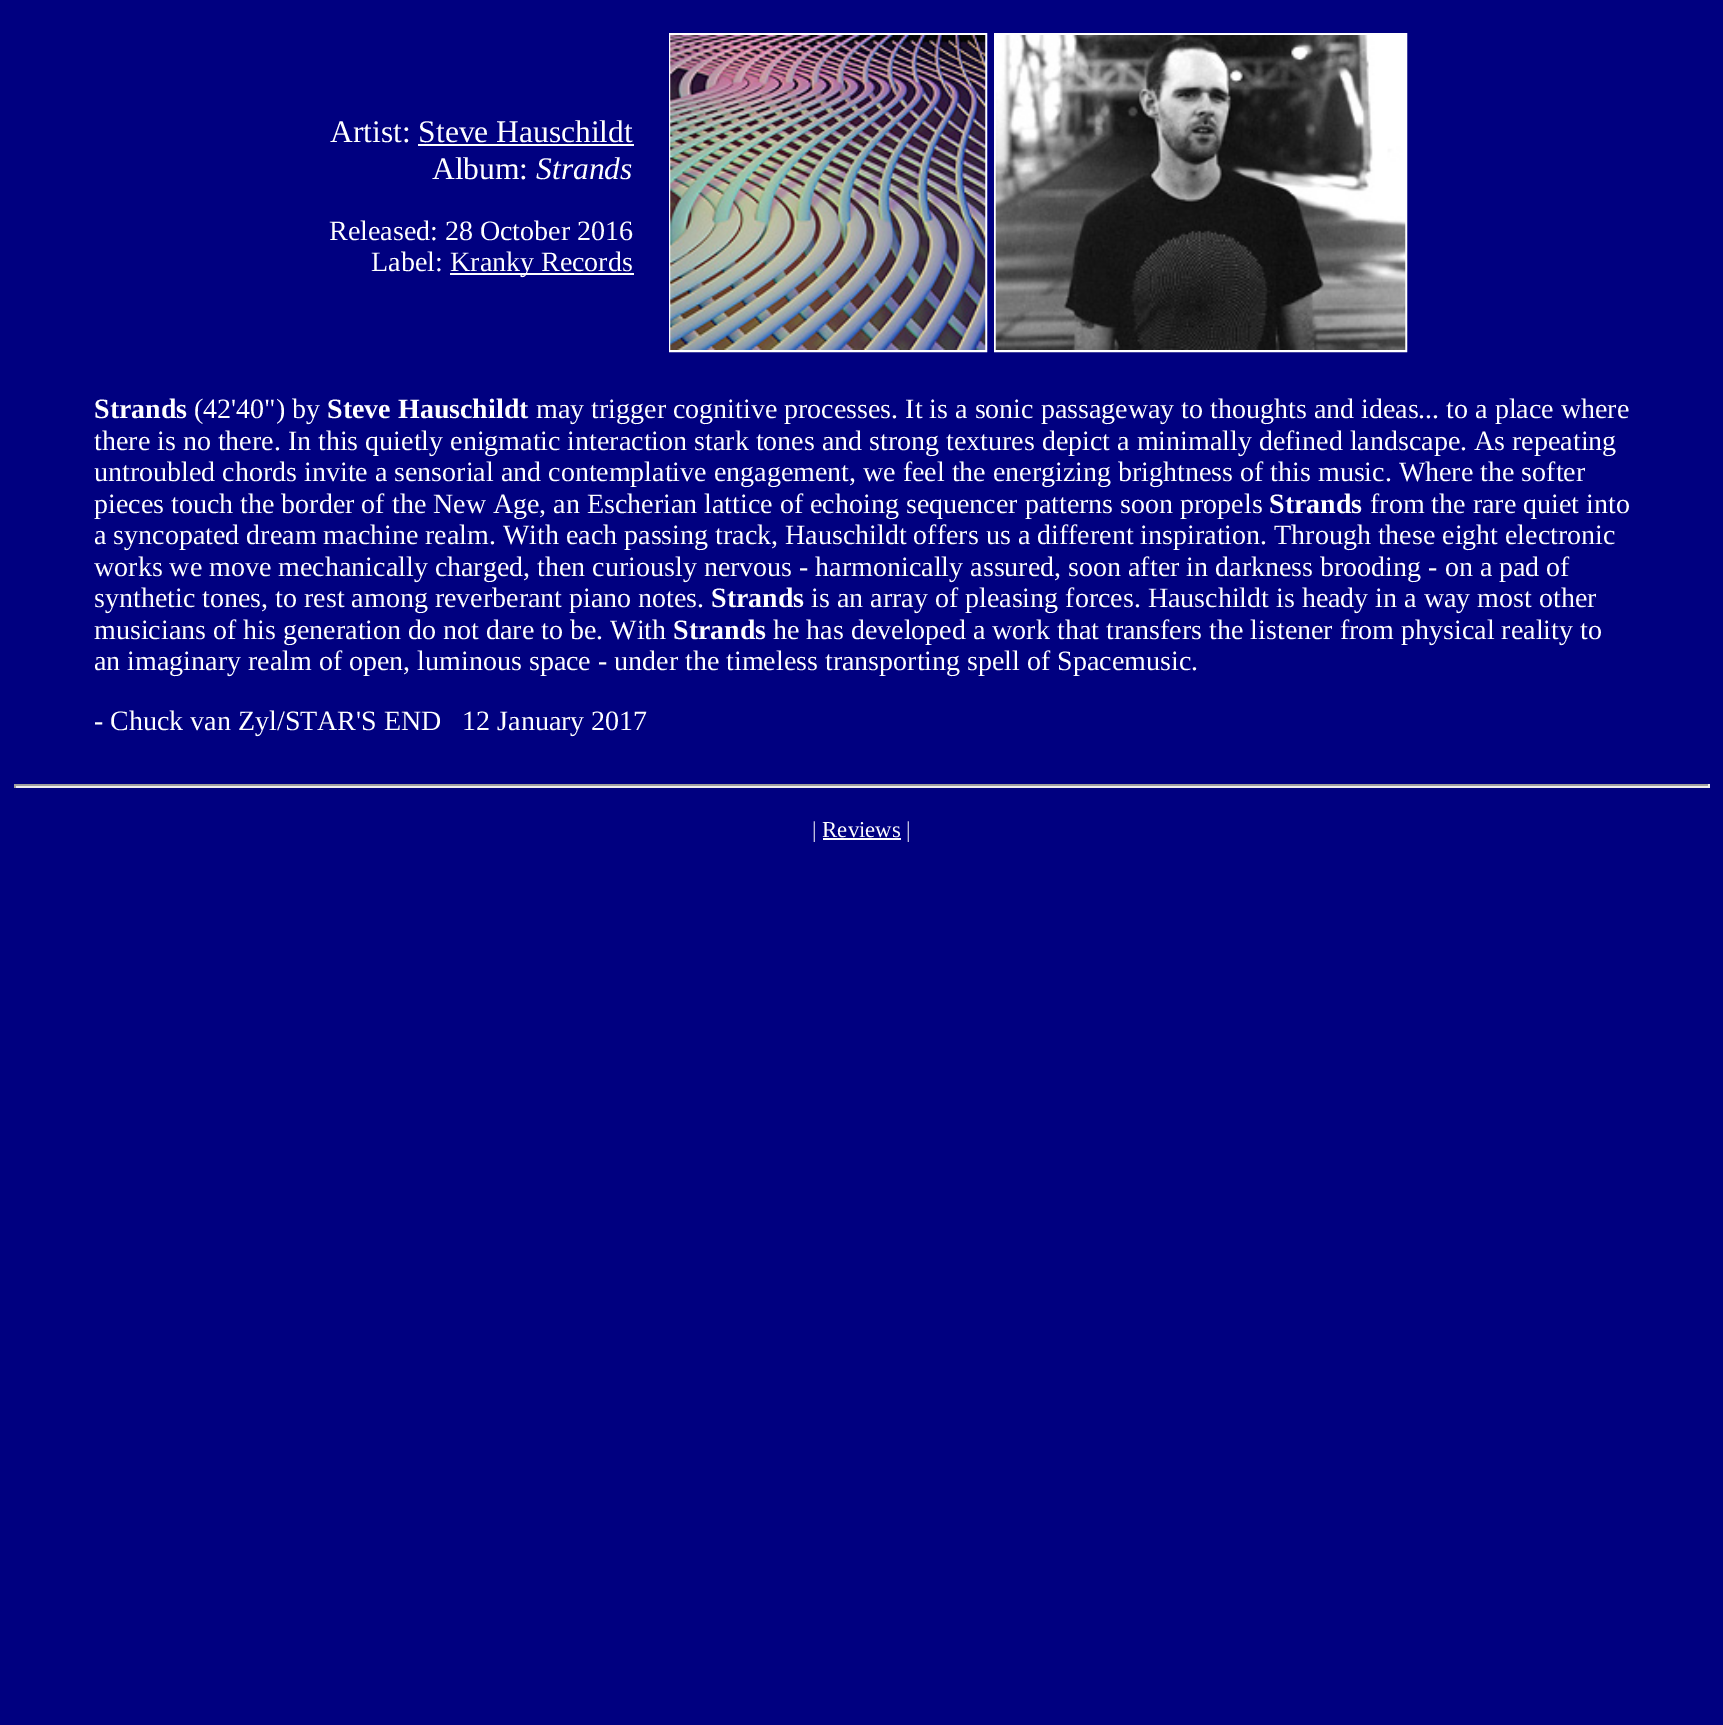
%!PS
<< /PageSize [1723 1725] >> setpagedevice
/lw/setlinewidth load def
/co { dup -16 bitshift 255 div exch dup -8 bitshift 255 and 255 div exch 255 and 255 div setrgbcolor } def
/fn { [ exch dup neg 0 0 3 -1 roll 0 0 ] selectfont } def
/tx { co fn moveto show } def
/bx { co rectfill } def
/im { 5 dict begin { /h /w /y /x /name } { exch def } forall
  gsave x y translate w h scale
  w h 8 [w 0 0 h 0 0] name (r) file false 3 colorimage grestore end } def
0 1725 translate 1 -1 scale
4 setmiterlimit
0 0 1723 1725 16#000080 bx
418 144 216 2 16#FFFFFF bx
450 273 184 2 16#FFFFFF bx
2 lw
670 34 316 317 rectstroke
995 34 411 317 rectstroke
(media/1.raw) 670 35 316 315 im
(media/2.raw) 995 35 411 315 im
14 784 1696 2 16#9F9F9F bx
1708 784 2 4 16#EEEEEE bx
14 786 1696 2 16#EEEEEE bx
14 784 2 4 16#9F9F9F bx
823 838 78 2 16#FFFFFF bx
(Artist: Steve Hauschildt) 330 142 /LiberationSerif-Regular 31.5 16#FFFFFF tx
(Album:) 432 179 /LiberationSerif-Regular 31.5 16#FFFFFF tx
(Strands) 536 179 /LiberationSerif-Italic 31.5 16#FFFFFF tx
(Released: 28 October 2016) 329 240 /LiberationSerif-Regular 28 16#FFFFFF tx
(Label:) 371 271 /LiberationSerif-Regular 28 16#FFFFFF tx
(Kranky Records) 450 271 /LiberationSerif-Regular 28 16#FFFFFF tx
(Strands) 94 418 /LiberationSerif-Bold 28 16#FFFFFF tx
(\(42'40"\) by) 194 418 /LiberationSerif-Regular 28 16#FFFFFF tx
(Steve Hauschildt) 327 418 /LiberationSerif-Bold 28 16#FFFFFF tx
(may trigger cognitive processes. It is a sonic passageway to thoughts and ideas... to a place where) 536 418 /LiberationSerif-Regular 28 16#FFFFFF tx
(there is no there. In this quietly enigmatic interaction stark tones and strong textures depict a minimally defined landscape. As repeating) 94 450 /LiberationSerif-Regular 28 16#FFFFFF tx
(untroubled chords invite a sensorial and contemplative engagement, we feel the energizing brightness of this music. Where the softer) 94 481 /LiberationSerif-Regular 28 16#FFFFFF tx
(pieces touch the border of the New Age, an Escherian lattice of echoing sequencer patterns soon propels) 94 513 /LiberationSerif-Regular 28 16#FFFFFF tx
(Strands) 1269 513 /LiberationSerif-Bold 28 16#FFFFFF tx
(from the rare quiet into) 1370 513 /LiberationSerif-Regular 28 16#FFFFFF tx
(a syncopated dream machine realm. With each passing track, Hauschildt offers us a different inspiration. Through these eight electronic) 94 544 /LiberationSerif-Regular 28 16#FFFFFF tx
(works we move mechanically charged, then curiously nervous - harmonically assured, soon after in darkness brooding - on a pad of) 94 576 /LiberationSerif-Regular 28 16#FFFFFF tx
(synthetic tones, to rest among reverberant piano notes.) 94 607 /LiberationSerif-Regular 28 16#FFFFFF tx
(Strands) 711 607 /LiberationSerif-Bold 28 16#FFFFFF tx
(is an array of pleasing forces. Hauschildt is heady in a way most other) 811 607 /LiberationSerif-Regular 28 16#FFFFFF tx
(musicians of his generation do not dare to be. With) 94 639 /LiberationSerif-Regular 28 16#FFFFFF tx
(Strands) 673 639 /LiberationSerif-Bold 28 16#FFFFFF tx
(he has developed a work that transfers the listener from physical reality to) 773 639 /LiberationSerif-Regular 28 16#FFFFFF tx
(an imaginary realm of open, luminous space - under the timeless transporting spell of Spacemusic.) 94 670 /LiberationSerif-Regular 28 16#FFFFFF tx
(- Chuck van Zyl/STAR'S END   12 January 2017) 94 730 /LiberationSerif-Regular 28 16#FFFFFF tx
(| Reviews |) 812 837 /LiberationSerif-Regular 22.75 16#FFFFFF tx
showpage
